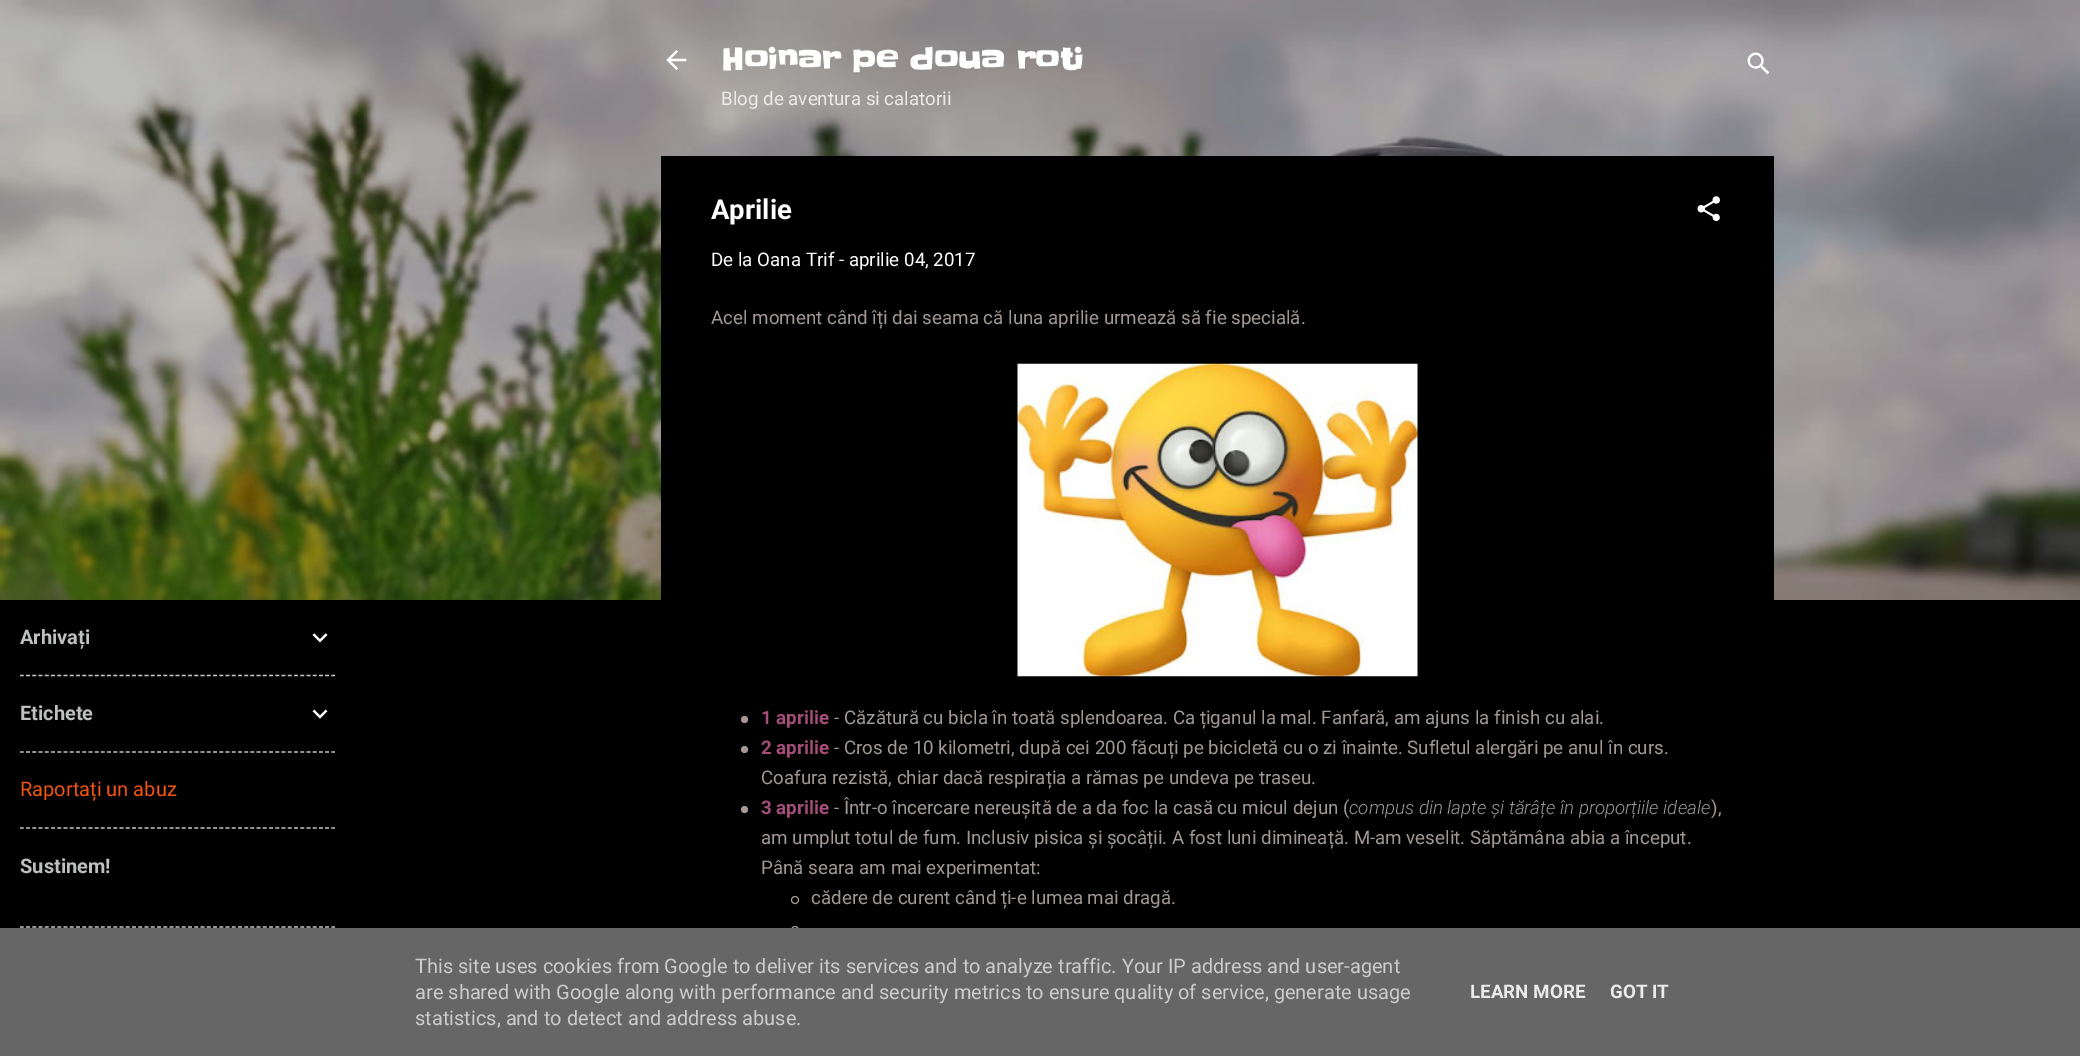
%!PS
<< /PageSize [2080 1056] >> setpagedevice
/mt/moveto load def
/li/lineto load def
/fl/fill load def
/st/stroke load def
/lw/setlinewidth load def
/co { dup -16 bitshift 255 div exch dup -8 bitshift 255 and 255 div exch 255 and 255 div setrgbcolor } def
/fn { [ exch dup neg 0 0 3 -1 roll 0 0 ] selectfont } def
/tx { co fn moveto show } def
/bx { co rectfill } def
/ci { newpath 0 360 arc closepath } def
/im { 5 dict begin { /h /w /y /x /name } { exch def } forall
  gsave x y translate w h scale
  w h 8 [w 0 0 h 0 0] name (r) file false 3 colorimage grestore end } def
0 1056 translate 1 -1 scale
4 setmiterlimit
0 0 2080 1056 16#000000 bx
(media/1.raw) 312 633 16 10 im
16#C8C8C8 co
1.2 lw
[3.75 2.48] 0 setdash
20 675.5 mt 335 675.5 li st
(media/2.raw) 312 709 16 10 im
20 752 mt 335 752 li st
20 828 mt 335 828 li st
20 927 mt 335 927 li st
(media/3.raw) 0 0 2080 600 im
(media/4.raw) 666 50 21 20 im
(media/5.raw) 1747 52 23 23 im
661 156 1113 444 16#000000 bx
(media/6.raw) 1697 196 23 26 im
(media/7.raw) 1017 363 401 314 im
16#A29994 co
744.5 719.5 3.5 ci fl
744.5 749.5 3.5 ci fl
744.5 809.5 3.5 ci fl
1 lw
[] 0 setdash
795 900 3.5 ci st
795 930 3.5 ci st
0 928 2080 128 16#666666 bx
(Arhivați) 20 644 /Roboto-Bold 20 16#BCC1C0 tx
(Etichete) 20 720 /Roboto-Bold 20 16#BCC1C0 tx
(Raportați un abuz) 20 796 /Roboto-Regular 20 16#F25411 tx
(Sustinem!) 20 873 /Roboto-Bold 20 16#BCC1C0 tx
(Hoinar pe doua roti) 721 70 /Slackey-Bold 30 16#FFFFFF tx
(Blog de aventura si calatorii) 721 105 /Roboto-Regular 18.75 16#ECEBEB tx
(Aprilie) 711 219 /Roboto-Bold 27.5 16#FFFFFF tx
(De la Oana Trif - aprilie 04, 2017) 711 266 /Roboto-Regular 18.75 16#FFFFFF tx
(Acel moment când îți dai seama că luna aprilie urmează să fie specială.) 711 324 /Roboto-Regular 18.75 16#A29994 tx
(1 aprilie) 761 724 /Roboto-Bold 18.75 16#A64D79 tx
(- Căzătură cu bicla în toată splendoarea. Ca țiganul la mal. Fanfară, am ajuns la finish cu alai.) 834 724 /Roboto-Regular 18.75 16#A29994 tx
(2 aprilie) 761 754 /Roboto-Bold 18.75 16#A64D79 tx
(- Cros de 10 kilometri, după cei 200 făcuți pe bicicletă cu o zi înainte. Sufletul alergări pe anul în curs.) 834 754 /Roboto-Regular 18.75 16#A29994 tx
(Coafura rezistă, chiar dacă respirația a rămas pe undeva pe traseu.) 761 784 /Roboto-Regular 18.75 16#A29994 tx
(3 aprilie) 761 814 /Roboto-Bold 18.75 16#A64D79 tx
(- Într-o încercare nereușită de a da foc la casă cu micul dejun \() 834 814 /Roboto-Regular 18.75 16#A29994 tx
(compus din lapte și tărâțe în proporțiile ideale) 1349 814 /Roboto-LightItalic 18.75 16#A29994 tx
(\),) 1711 814 /Roboto-Regular 18.75 16#A29994 tx
(am umplut totul de fum. Inclusiv pisica și șocâții. A fost luni dimineață. M-am veselit. Săptămâna abia a început.) 761 844 /Roboto-Regular 18.75 16#A29994 tx
(Până seara am mai experimentat:) 761 874 /Roboto-Regular 18.75 16#A29994 tx
(cădere de curent când ți-e lumea mai dragă.) 811 904 /Roboto-Regular 18.75 16#A29994 tx
(This site uses cookies from Google to deliver its services and to analyze traffic. Your IP address and user-agent) 415 973 /Roboto-Regular 20 16#CCCCCC tx
(are shared with Google along with performance and security metrics to ensure quality of service, generate usage) 415 999 /Roboto-Regular 20 16#CCCCCC tx
(statistics, and to detect and address abuse.) 415 1025 /Roboto-Regular 20 16#CCCCCC tx
(LEARN MORE) 1470 998 /Roboto-Bold 18.75 16#ECEBEB tx
(GOT IT) 1610 998 /Roboto-Bold 18.75 16#ECEBEB tx
showpage
